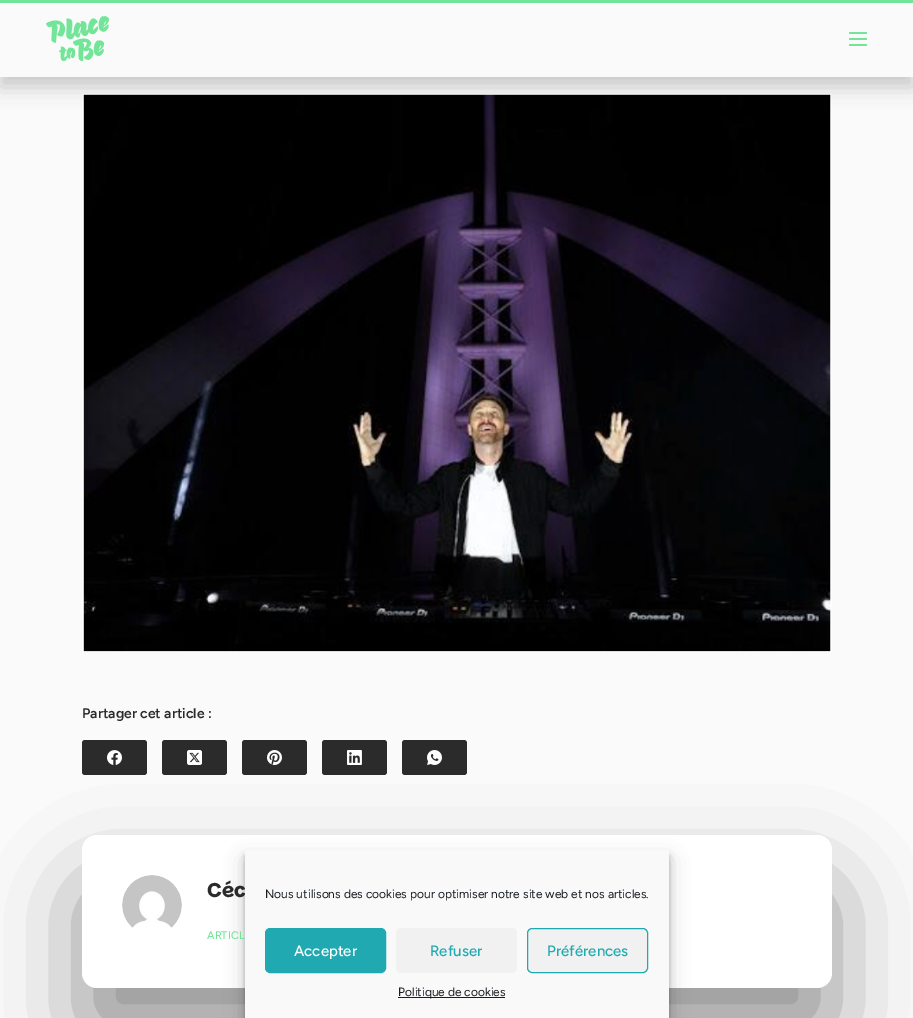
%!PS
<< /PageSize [913 1018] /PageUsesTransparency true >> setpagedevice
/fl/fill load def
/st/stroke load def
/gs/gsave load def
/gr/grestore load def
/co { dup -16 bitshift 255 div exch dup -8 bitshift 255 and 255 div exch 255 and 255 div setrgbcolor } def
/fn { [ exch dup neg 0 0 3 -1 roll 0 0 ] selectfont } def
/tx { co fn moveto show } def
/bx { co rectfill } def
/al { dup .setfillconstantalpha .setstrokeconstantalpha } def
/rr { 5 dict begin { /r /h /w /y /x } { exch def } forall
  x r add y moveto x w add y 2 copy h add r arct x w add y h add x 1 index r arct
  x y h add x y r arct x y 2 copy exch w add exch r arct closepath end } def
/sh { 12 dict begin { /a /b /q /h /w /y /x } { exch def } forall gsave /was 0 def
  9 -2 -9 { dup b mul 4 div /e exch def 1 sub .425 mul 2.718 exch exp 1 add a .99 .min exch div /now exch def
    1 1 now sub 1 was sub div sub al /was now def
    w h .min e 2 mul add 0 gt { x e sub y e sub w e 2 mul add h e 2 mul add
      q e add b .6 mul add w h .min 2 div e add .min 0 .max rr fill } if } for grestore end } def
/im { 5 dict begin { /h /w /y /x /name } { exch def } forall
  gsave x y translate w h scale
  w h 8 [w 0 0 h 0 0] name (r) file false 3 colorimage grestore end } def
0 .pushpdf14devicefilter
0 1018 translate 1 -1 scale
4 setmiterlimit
0 0 913 1018 16#FAFAFA bx
(media/2.raw) 82 93 750 559 im
16#000000 co
0 10 913 77 0 10 .2 sh
0 0 913 3 16#73E599 bx
0 3 913 74 16#FAFAFA bx
(media/1.raw) 46 16 63 45 im
16#73E599 co
849 32 18 2 1 rr fl
849 38 18 2 1 rr fl
849 44 18 2 1 rr fl
16#000000 co
82 885 750 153 15 45 .4 sh
16#2B2B2B co
82 740 65 35 3 rr fl
(media/3.raw) 107 750 15 15 im
162 740 65 35 3 rr fl
(media/4.raw) 187 750 15 15 im
242 740 65 35 3 rr fl
(media/5.raw) 267 750 15 15 im
322 740 65 35 3 rr fl
(media/6.raw) 347 750 15 15 im
402 740 65 35 3 rr fl
(media/7.raw) 427 750 15 15 im
16#FFFFFF co
82 835 750 153 15 rr fl
(media/8.raw) 122 875 60 53 im
16#000000 co
245 856 424 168 0 3 .23 sh
245 860 424 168 0 10 .19 sh
(Partager cet article :) 82 718 /Figtree-SemiBold 14 16#2B2B2B tx
(Céc) 207 897 /Parkinsans-Bold 20 16#2B2B2B tx
(ARTICL) 207 939 /Figtree-Medium 11 16#73E599 tx
245 850 424 168 16#F9F9F9 bx
(Nous utilisons des cookies pour optimiser notre site web et nos articles.) 265 898 /Figtree-Regular 12 16#191E23 tx
16#20A9B0 co
265.5 928.5 120 44 4.5 rr gs fl gr
st
(Accepter) 294 956 /Figtree-Medium 15 16#FFFFFF tx
16#F1F1F1 co
396 928 121 45 5 rr fl
(Refuser) 430 956 /Figtree-Medium 15 16#20A9B0 tx
16#F1F1F1 co
527.5 928.5 120 44 4.5 rr gs fl gr
16#20A9B0 co
st
(Préférences) 547 956 /Figtree-Medium 15 16#20A9B0 tx
398 997 107 1 16#191E23 bx
(Politique de cookies) 398 996 /Figtree-Regular 12 16#191E23 tx
.poppdf14devicefilter showpage
